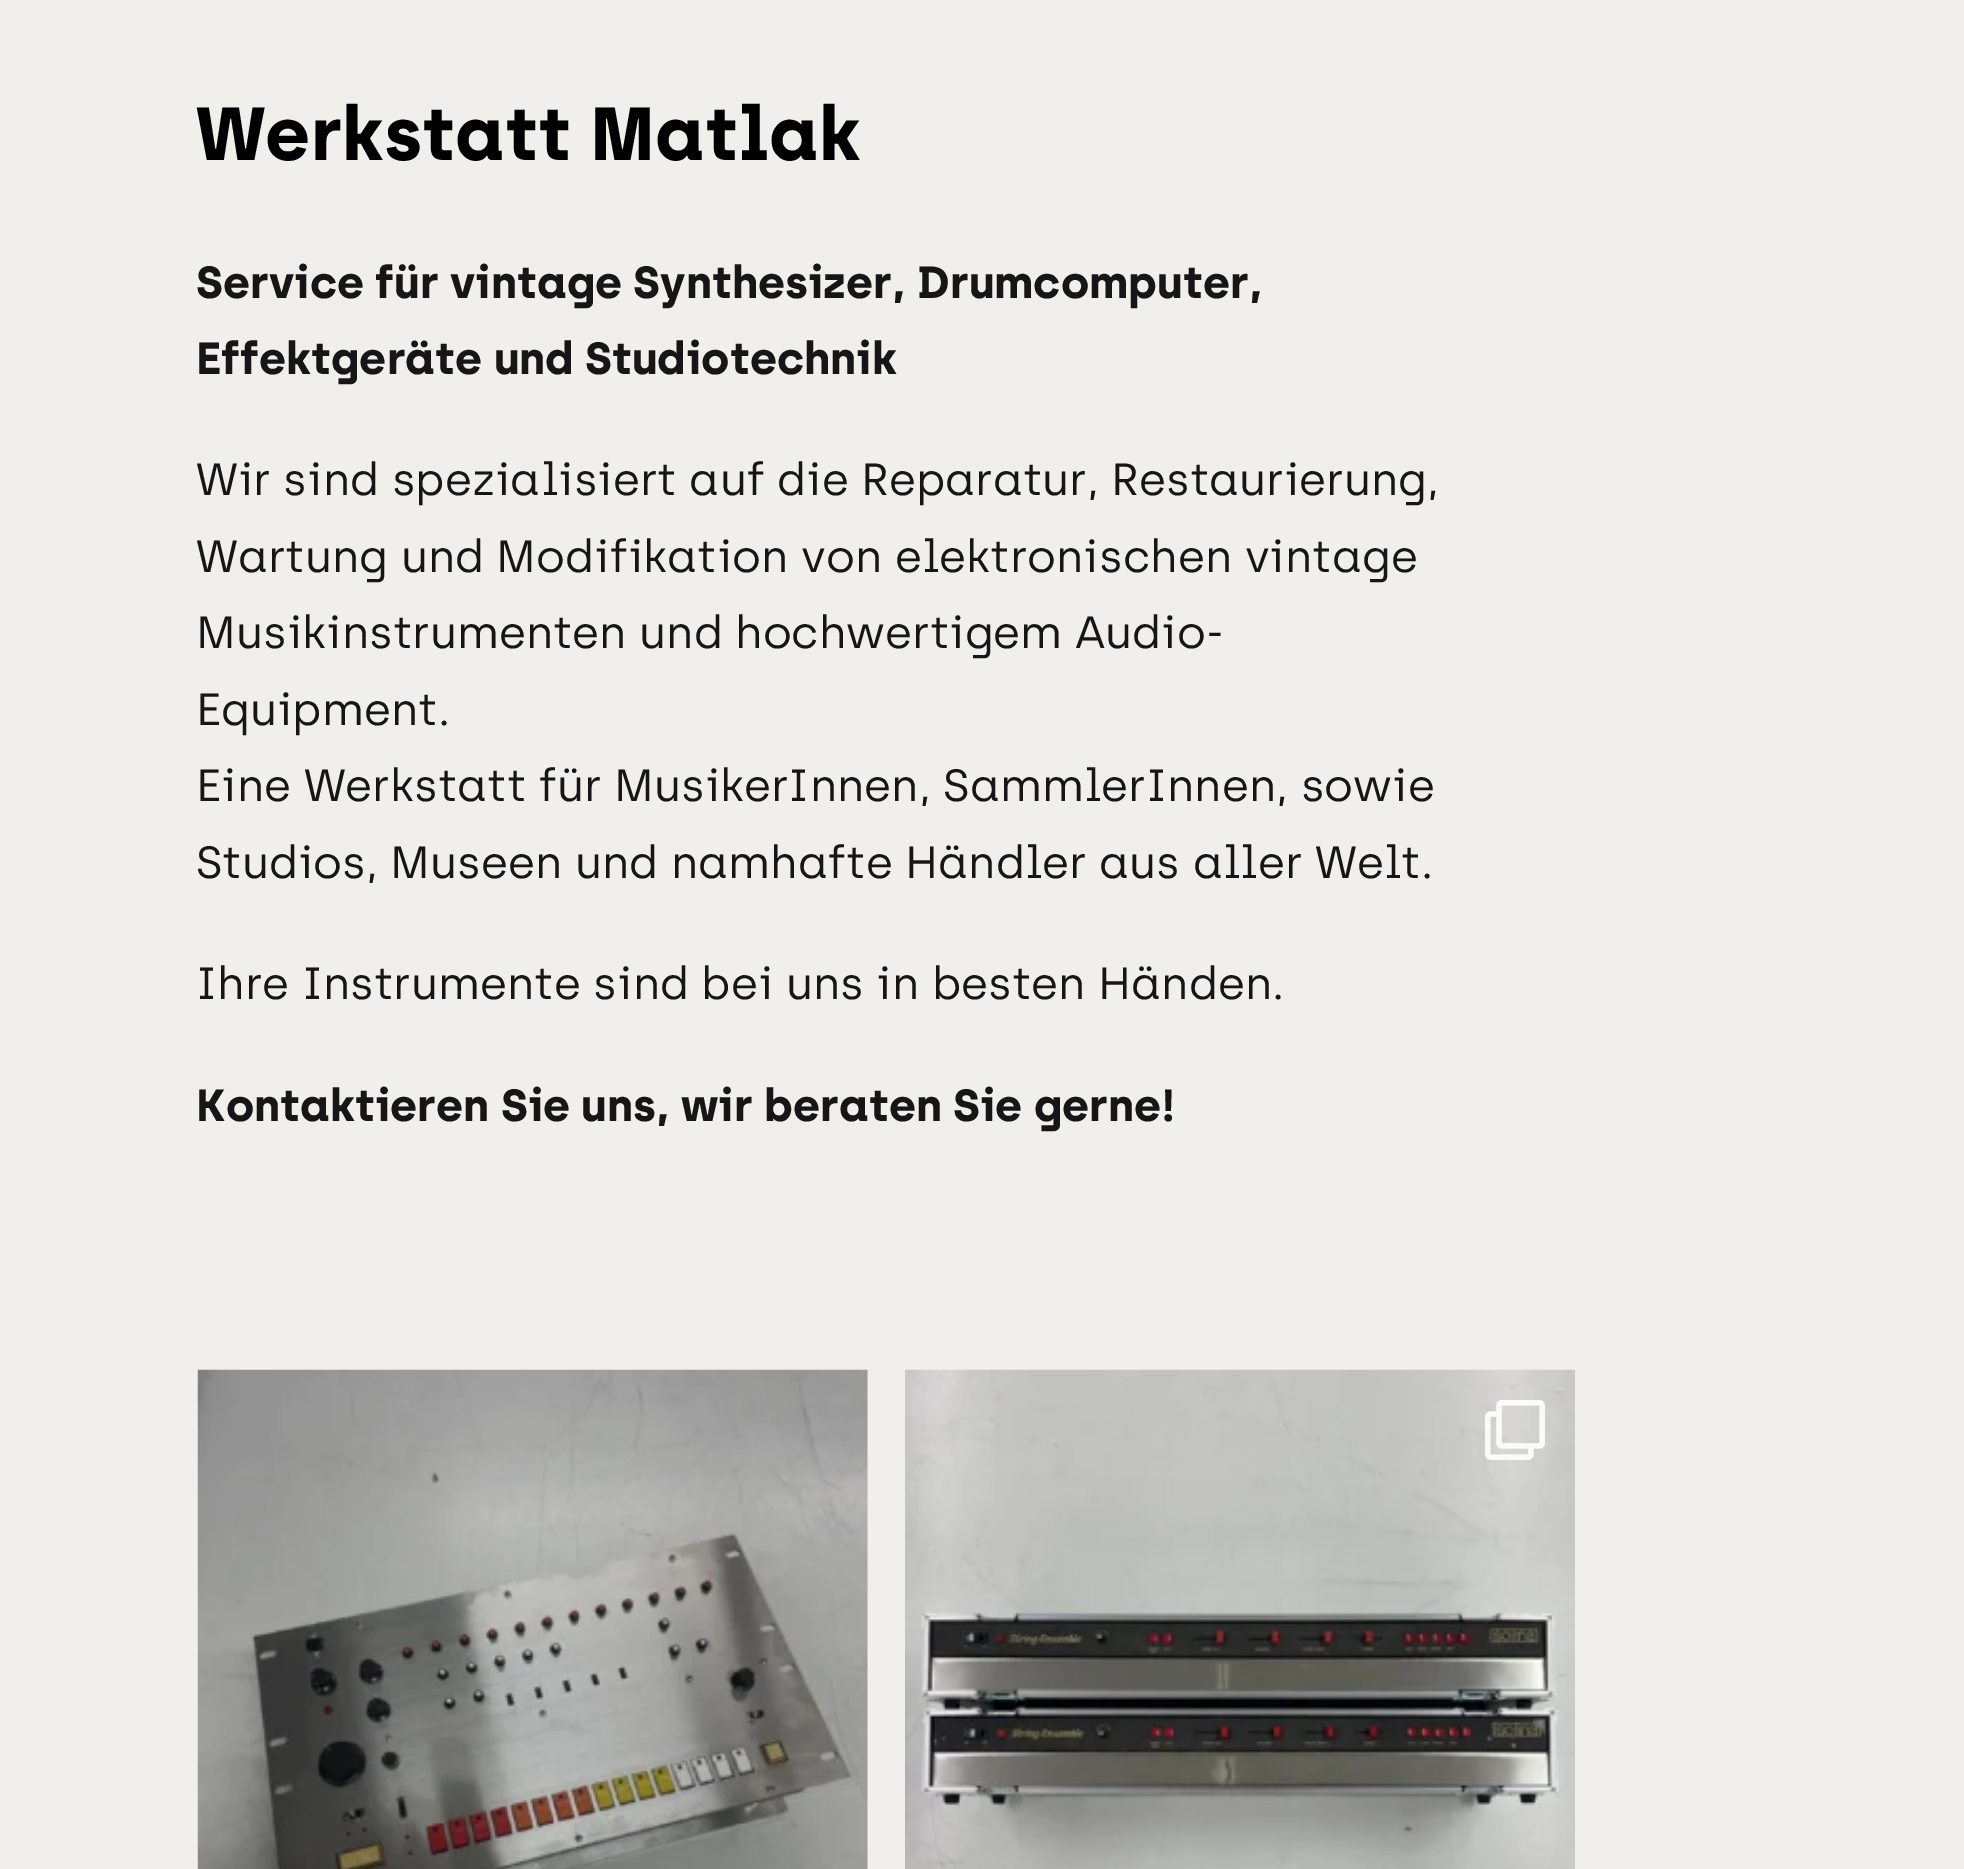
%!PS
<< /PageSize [1964 1869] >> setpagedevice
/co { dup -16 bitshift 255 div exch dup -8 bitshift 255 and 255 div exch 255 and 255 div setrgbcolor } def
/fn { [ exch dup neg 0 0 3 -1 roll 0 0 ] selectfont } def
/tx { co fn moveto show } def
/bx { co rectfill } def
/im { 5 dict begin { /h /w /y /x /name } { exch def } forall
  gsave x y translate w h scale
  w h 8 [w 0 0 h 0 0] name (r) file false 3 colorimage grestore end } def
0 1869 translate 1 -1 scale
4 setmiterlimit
0 0 1964 1869 16#F0EFEB bx
(media/1.raw) 197 1369 671 500 im
(media/2.raw) 905 1369 670 500 im
(media/3.raw) 1485 1400 60 60 im
(Werkstatt Matlak) 196 160 /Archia-Bold 75 16#000000 tx
(Service für vintage Synthesizer, Drumcomputer,) 196 298 /Archia-Bold 45 16#161616 tx
(Effektgeräte und Studiotechnik) 196 374 /Archia-Bold 45 16#161616 tx
(Wir sind spezialisiert auf die Reparatur, Restaurierung,) 196 495 /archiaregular-Regular 45 16#161616 tx
(Wartung und Modifikation von elektronischen vintage) 196 572 /archiaregular-Regular 45 16#161616 tx
(Musikinstrumenten und hochwertigem Audio-) 196 648 /archiaregular-Regular 45 16#161616 tx
(Equipment.) 196 725 /archiaregular-Regular 45 16#161616 tx
(Eine Werkstatt für MusikerInnen, SammlerInnen, sowie) 196 801 /archiaregular-Regular 45 16#161616 tx
(Studios, Museen und namhafte Händler aus aller Welt.) 196 878 /archiaregular-Regular 45 16#161616 tx
(Ihre Instrumente sind bei uns in besten Händen.) 196 999 /archiaregular-Regular 45 16#161616 tx
(Kontaktieren Sie uns, wir beraten Sie gerne!) 196 1121 /Archia-Bold 45 16#161616 tx
showpage
